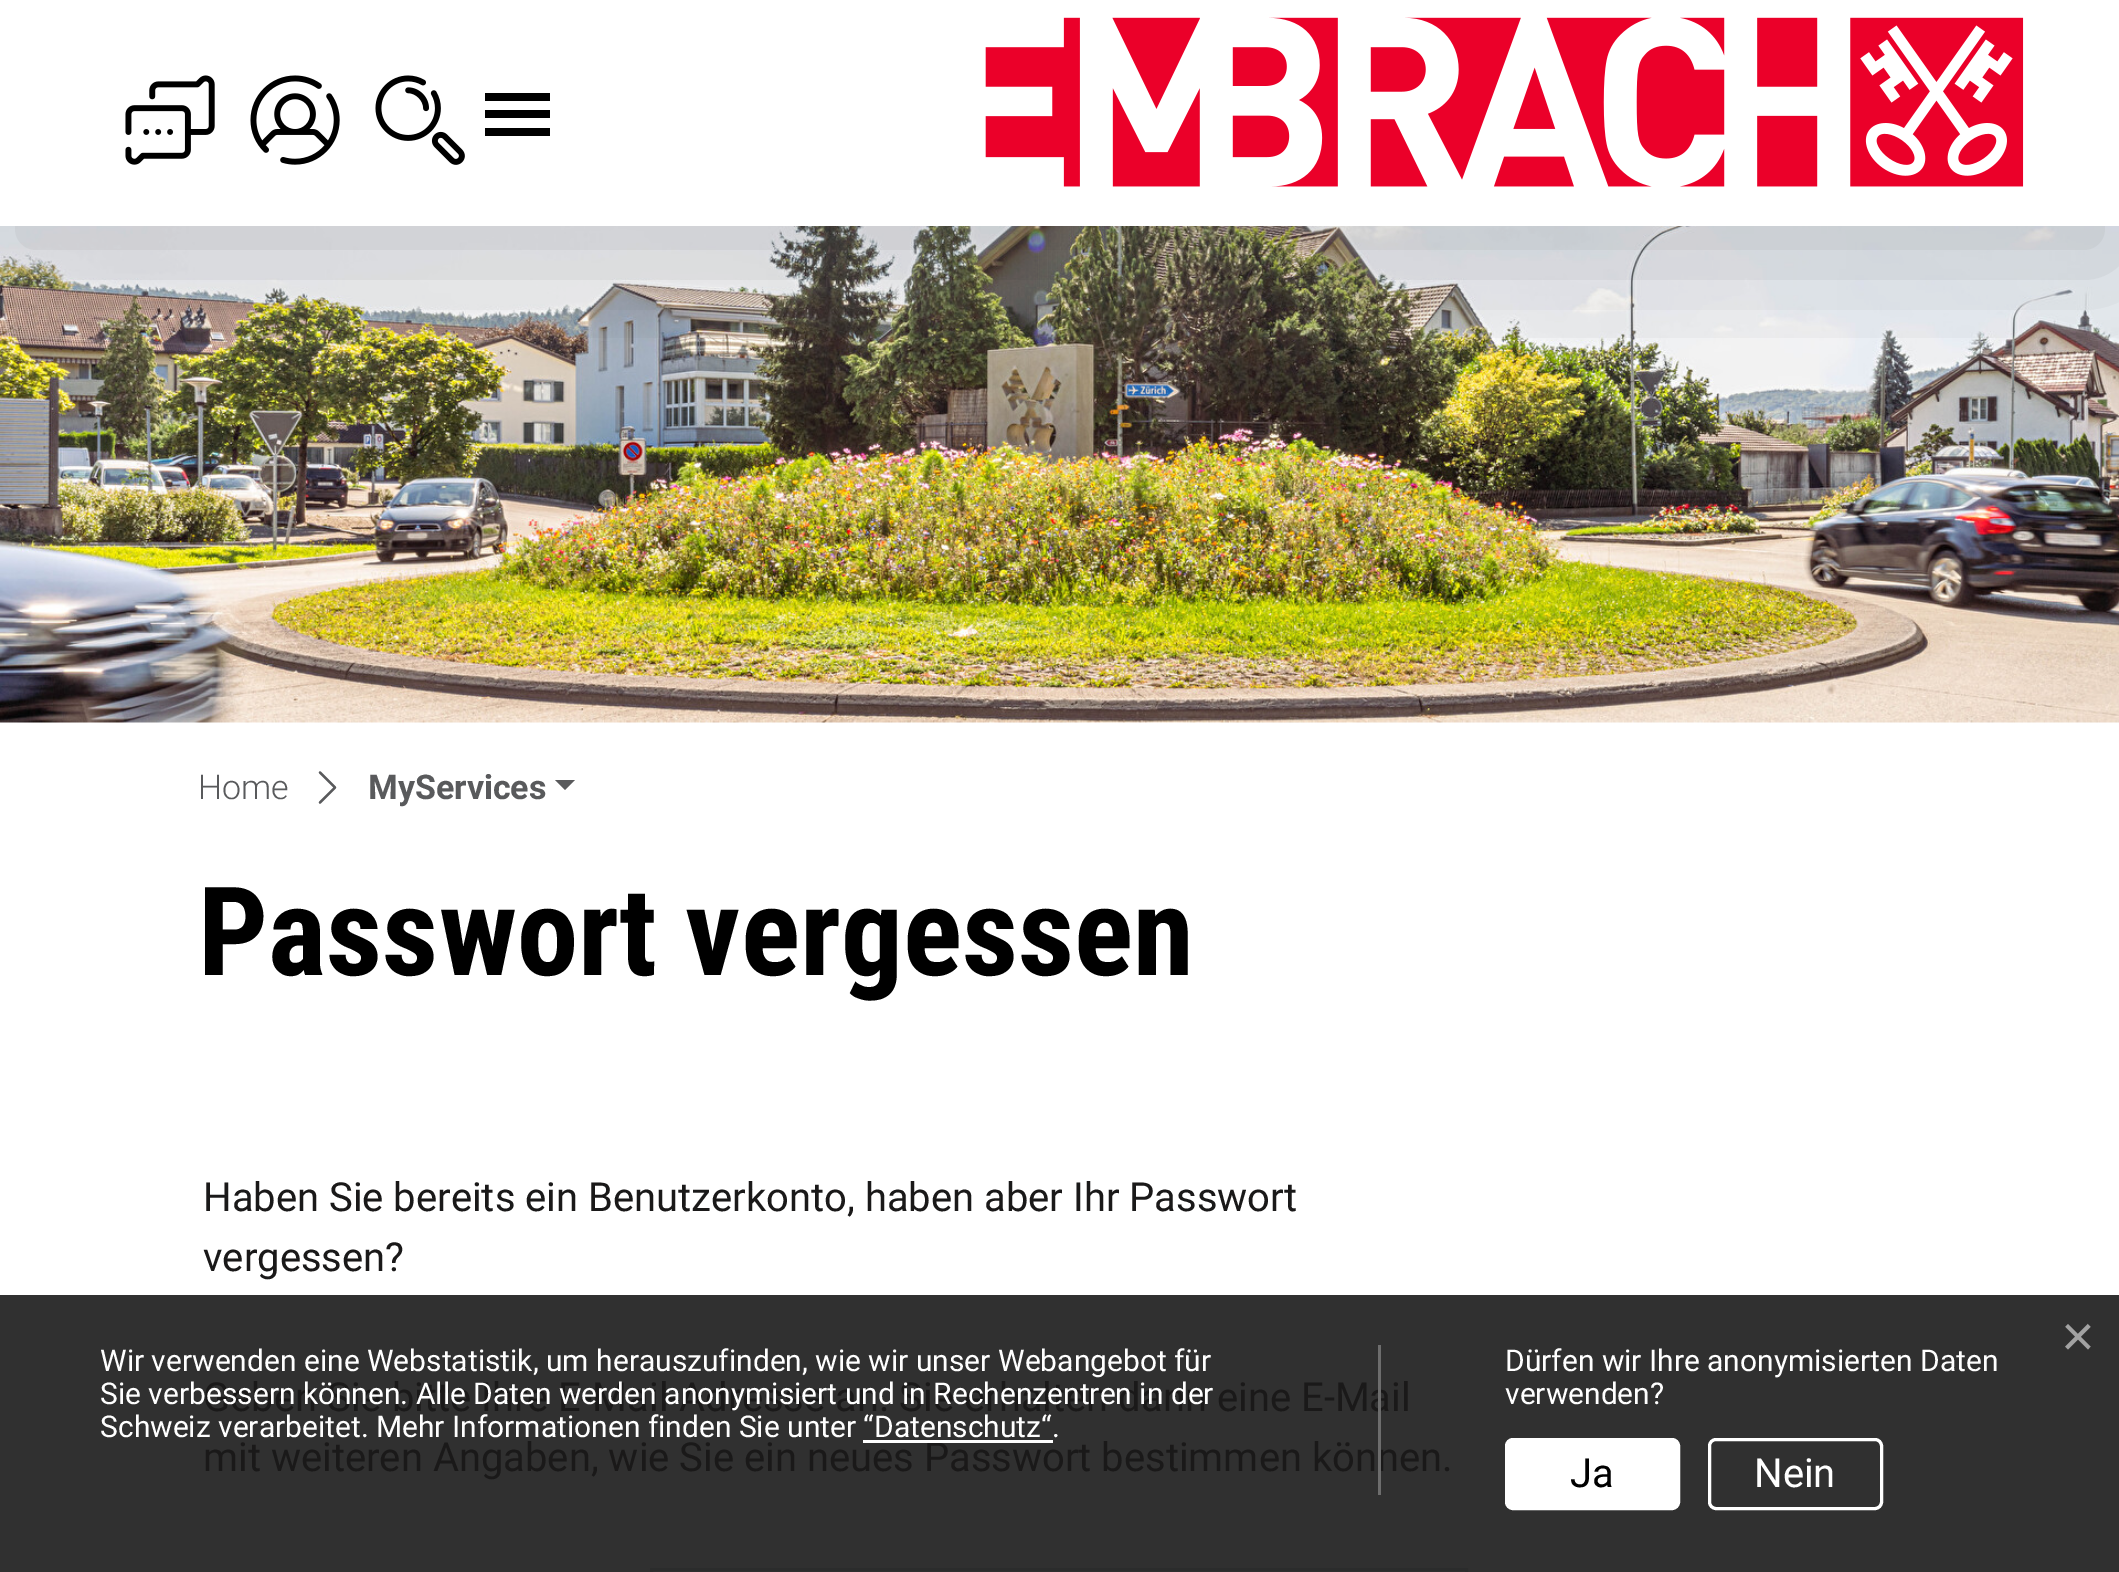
%!PS
<< /PageSize [2119 1572] /PageUsesTransparency true >> setpagedevice
/mt/moveto load def
/li/lineto load def
/cp/closepath load def
/fl/fill load def
/st/stroke load def
/gs/gsave load def
/gr/grestore load def
/lw/setlinewidth load def
/co { dup -16 bitshift 255 div exch dup -8 bitshift 255 and 255 div exch 255 and 255 div setrgbcolor } def
/fn { [ exch dup neg 0 0 3 -1 roll 0 0 ] selectfont } def
/tx { co fn moveto show } def
/bx { co rectfill } def
/al { dup .setfillconstantalpha .setstrokeconstantalpha } def
/rr { 5 dict begin { /r /h /w /y /x } { exch def } forall
  x r add y moveto x w add y 2 copy h add r arct x w add y h add x 1 index r arct
  x y h add x y r arct x y 2 copy exch w add exch r arct closepath end } def
/sh { 12 dict begin { /a /b /q /h /w /y /x } { exch def } forall gsave /was 0 def
  9 -2 -9 { dup b mul 4 div /e exch def 1 sub .425 mul 2.718 exch exp 1 add a .99 .min exch div /now exch def
    1 1 now sub 1 was sub div sub al /was now def
    w h .min e 2 mul add 0 gt { x e sub y e sub w e 2 mul add h e 2 mul add
      q e add b .6 mul add w h .min 2 div e add .min 0 .max rr fill } if } for grestore end } def
/im { 5 dict begin { /h /w /y /x /name } { exch def } forall
  gsave x y translate w h scale
  w h 8 [w 0 0 h 0 0] name (r) file false 3 colorimage grestore end } def
0 .pushpdf14devicefilter
0 1572 translate 1 -1 scale
4 setmiterlimit
0 0 2119 1572 16#FFFFFF bx
0 1295 2119 277 16#303030 bx
(media/5.raw) 0 226 2119 497 im
gs
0 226 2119 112 rectclip
16#000000 co
0 40 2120 225 0 60 .18 sh
gr
0 225 2119 1 16#FFFFFF bx
(media/1.raw) 125 75 90 90 im
(media/2.raw) 250 75 90 90 im
(media/3.raw) 375 75 90 90 im
485 93 65 8 16#000000 bx
485 110 65 8 16#000000 bx
485 128 65 8 16#000000 bx
(media/4.raw) 985 17 1039 170 im
(media/6.raw) 318 771 19 33 im
16#595A5C co
555 780 mt 575 780 li 565 790 li cp fl
16#2B2C2C co
3 lw
651.5 1569.5 815 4 rectstroke
16#FFFFFF co
1506.5 1439.5 172 69 6.5 rr gs fl gr
st
1709.5 1439.5 172 69 6.5 rr st
(Home) 198 799 /Roboto-Light 34 16#595A5C tx
(MyServices) 368 799 /Roboto-Bold 34 16#595A5C tx
(Passwort vergessen) 198 975 /RobotoCondensed-Bold 123.5 16#000000 tx
(Haben Sie bereits ein Benutzerkonto, haben aber Ihr Passwort) 203 1211 /Roboto-Regular 40 16#1A1919 tx
(vergessen?) 203 1271 /Roboto-Regular 40 16#1A1919 tx
(Geben Sie bitte Ihre E-Mail-Adresse an. Sie erhalten dann eine E-Mail) 203 1411 /Roboto-Regular 40 16#1A1919 tx
(mit weiteren Angaben, wie Sie ein neues Passwort bestimmen können.) 203 1471 /Roboto-Regular 40 16#1A1919 tx
(×) 2061 1356 /LiberationSans-Regular 58 16#A2A2A2 tx
1378 1345 3 150 16#6D6D6D bx
(Wir verwenden eine Webstatistik, um herauszufinden, wie wir unser Webangebot für) 100 1371 /Roboto-Regular 30 16#FFFFFF tx
(Sie verbessern können. Alle Daten werden anonymisiert und in Rechenzentren in der) 100 1404 /Roboto-Regular 30 16#FFFFFF tx
(Schweiz verarbeitet. Mehr Informationen finden Sie unter “Datenschutz“.) 100 1437 /Roboto-Regular 30 16#FFFFFF tx
863 1440 190 3 16#FFFFFF bx
(Dürfen wir Ihre anonymisierten Daten) 1505 1371 /Roboto-Regular 30 16#FFFFFF tx
(verwenden?) 1505 1404 /Roboto-Regular 30 16#FFFFFF tx
(Ja) 1570 1487 /Roboto-Regular 40 16#000000 tx
(Nein) 1754 1487 /Roboto-Regular 40 16#FFFFFF tx
.poppdf14devicefilter showpage
